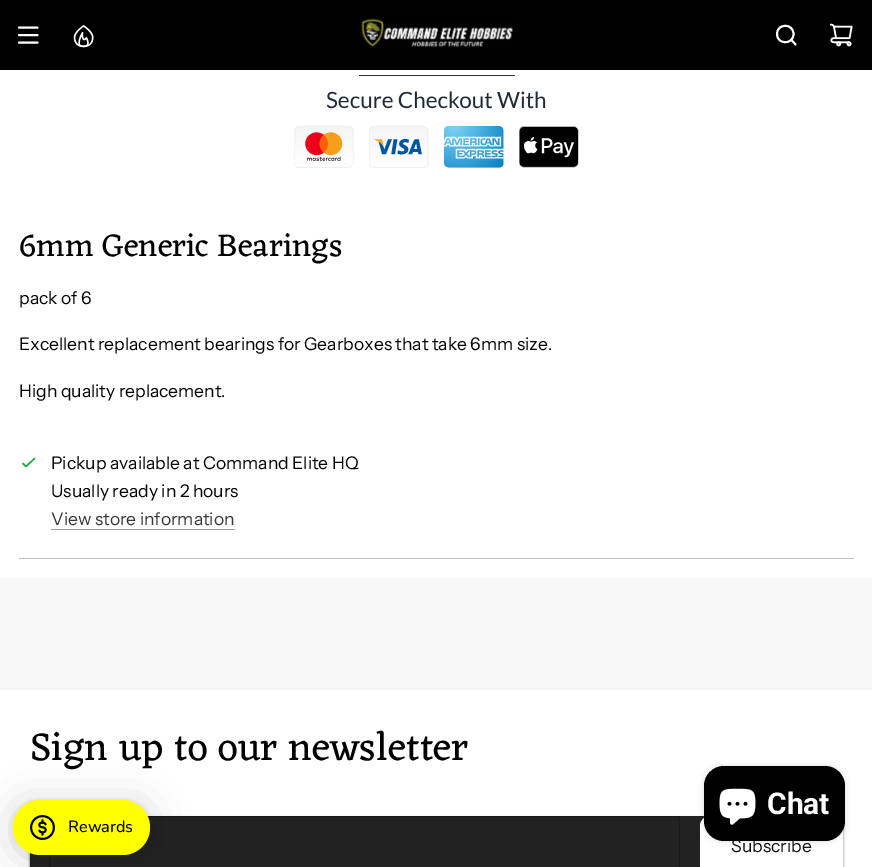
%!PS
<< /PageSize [872 867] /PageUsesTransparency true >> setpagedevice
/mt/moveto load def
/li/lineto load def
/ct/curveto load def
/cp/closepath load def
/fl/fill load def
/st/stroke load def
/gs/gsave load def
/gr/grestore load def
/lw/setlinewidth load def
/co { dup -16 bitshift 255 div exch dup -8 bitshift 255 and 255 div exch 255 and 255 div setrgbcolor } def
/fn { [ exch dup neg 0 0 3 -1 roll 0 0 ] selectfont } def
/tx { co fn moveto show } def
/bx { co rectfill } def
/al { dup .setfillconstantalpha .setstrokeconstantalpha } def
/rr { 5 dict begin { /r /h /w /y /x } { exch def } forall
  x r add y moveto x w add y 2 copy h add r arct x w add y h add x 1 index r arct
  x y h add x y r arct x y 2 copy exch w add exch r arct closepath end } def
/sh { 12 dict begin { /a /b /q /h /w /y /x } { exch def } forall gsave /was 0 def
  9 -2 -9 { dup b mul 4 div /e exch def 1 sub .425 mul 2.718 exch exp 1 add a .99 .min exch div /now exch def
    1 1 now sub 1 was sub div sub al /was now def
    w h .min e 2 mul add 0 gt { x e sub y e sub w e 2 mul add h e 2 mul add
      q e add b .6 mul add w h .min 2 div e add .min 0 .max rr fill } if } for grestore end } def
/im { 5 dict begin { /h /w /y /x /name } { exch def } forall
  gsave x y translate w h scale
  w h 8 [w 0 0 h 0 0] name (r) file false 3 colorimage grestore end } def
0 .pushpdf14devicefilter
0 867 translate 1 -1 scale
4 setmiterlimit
0 0 872 867 16#FFFFFF bx
0 0 872 70 16#000000 bx
16#FFFFFF co
1.9 lw
1 setlinecap
1 setlinejoin
19 27.5 mt 37.5 27.5 li 19 35 mt 37.5 35 li 19 42.5 mt 37.5 42.5 li st
(media/1.raw) 73 25 21 23 im
(media/2.raw) 361 18 152 29 im
791.5 40 mt 795.5 44.5 li 777 34 mt 777 45 793.5 45 793.5 34 ct 793.5 23 777 23 777 34 ct cp st
(media/3.raw) 829 23 24 24 im
359 75 156 1 16#373737 bx
(media/4.raw) 294 91 285 77 im
16#28A745 co
1.5 lw
23 463.5 mt 26 466.5 li 34.5 458.5 li st
51 529 184 1 16#9B9B9B bx
19 558 835 1 16#BFBFBF bx
0 578 872 112 16#F8F8F8 bx
16#222222 co
30 818 813 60 10 2 .1 sh
30 818 813 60 10 1 .8 sh
30 816 813 51 16#222222 bx
16#1A1A1A co
1 lw
0 setlinecap
0 setlinejoin
49.5 816.5 630 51 rectstroke
16#FFFFFF co
700.5 816.5 142 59 9.5 rr gs fl gr
st
16#000000 co
704 766 141 75 20 3 .15 sh
13 803 137 55 27.5 20 .16 sh
13 801 137 55 27.5 4 .06 sh
16#FFFF00 co
13 800 137 55 27.5 rr fl
(media/6.raw) 30 815 25 25 im
(6mm Generic Bearings) 19 256 /Eczar-Regular 32.5 16#000000 tx
(pack of 6) 19 304 /InstrumentSans-Regular 17.5 16#000000 tx
(Excellent replacement bearings for Gearboxes that take 6mm size.) 19 350 /InstrumentSans-Regular 17.5 16#000000 tx
(High quality replacement.) 19 397 /InstrumentSans-Regular 17.5 16#000000 tx
(Pickup available at Command Elite HQ) 51 469 /InstrumentSans-Regular 17.5 16#000000 tx
(Usually ready in 2 hours) 51 497 /InstrumentSans-Regular 17.5 16#000000 tx
(View store information) 51 525 /InstrumentSans-Regular 17.5 16#373737 tx
(Sign up to our newsletter) 30 760 /Eczar-Regular 40 16#000000 tx
(Subscribe) 731 852 /InstrumentSans-Regular 17.5 16#121212 tx
16#000000 co
704 766 141 75 20 rr fl
(media/5.raw) 719 788 37 37 im
(Chat) 767 814 /Roboto-Bold 30 16#FFFFFF tx
(Rewards) 68 832 /Nunito-Medium 16.25 16#000000 tx
.poppdf14devicefilter showpage
